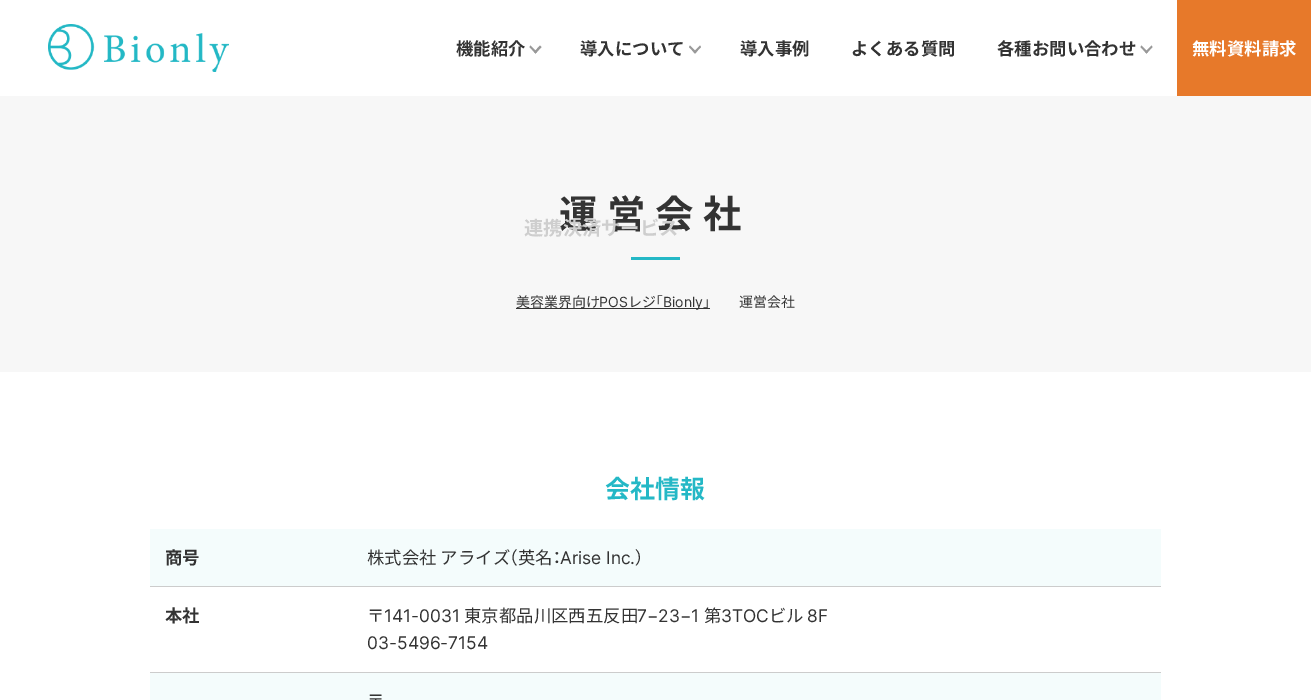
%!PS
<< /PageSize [1311 700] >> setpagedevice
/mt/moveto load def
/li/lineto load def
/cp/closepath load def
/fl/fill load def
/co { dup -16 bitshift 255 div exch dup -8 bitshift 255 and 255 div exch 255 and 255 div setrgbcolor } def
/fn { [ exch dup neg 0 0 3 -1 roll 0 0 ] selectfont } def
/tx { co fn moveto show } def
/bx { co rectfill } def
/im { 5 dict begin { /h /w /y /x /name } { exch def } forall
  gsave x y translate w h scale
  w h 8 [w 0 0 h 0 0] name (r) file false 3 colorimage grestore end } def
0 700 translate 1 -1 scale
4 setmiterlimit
0 0 1311 700 16#FFFFFF bx
(media/1.raw) 48 24 181 48 im
16#999999 co
540 45.5 mt 541.5 47 li 535.5 53.5 li 534 52 li cp fl
530.5 45.5 mt 537 52 li 535.5 53.5 li 529.5 47 li cp fl
700 45.5 mt 701 47 li 695 53.5 li 693.5 52 li cp fl
690 45.5 mt 696.5 52 li 695 53.5 li 689 47 li cp fl
1151.5 45.5 mt 1152.5 47 li 1146.5 53.5 li 1145 52 li cp fl
1141.5 45.5 mt 1148 52 li 1146.5 53.5 li 1140.5 47 li cp fl
1177 0 134 96 16#E7792A bx
0 96 1311 276 16#F7F7F7 bx
631 257 49 3 16#24B8C6 bx
516 308 194 1 16#333333 bx
150 529 1011 57 16#F4FCFC bx
150 586 1011 1 16#CCCCCC bx
150 672 1011 1 16#CCCCCC bx
150 673 1011 27 16#F4FCFC bx
(機能紹介) 456 55 /NotoSansJP-Bold 17.4 16#333333 tx
(導入について) 580 55 /NotoSansJP-Bold 17.4 16#333333 tx
(導入事例) 740 55 /NotoSansJP-Bold 17.4 16#333333 tx
(よくある質問) 851 55 /NotoSansJP-Bold 17.4 16#333333 tx
(各種お問い合わせ) 997 55 /NotoSansJP-Bold 17.4 16#333333 tx
(無料資料請求) 1192 55 /NotoSansJP-Bold 17.4 16#FFFFFF tx
/NotoSansJP-Bold 38.5 fn
16#333333 co
559 228 mt 9.5 0 (運営会社) ashow
(連携決済サービス) 524 235 /NotoSansJP-Bold 19.25 16#CECECE tx
(美容業界向け) 516 307 /NotoSansJP-Regular 14 16#333333 tx
(POS) 599 307 /Inter-Regular 14 16#333333 tx
(レジ) 628 307 /NotoSansJP-Regular 14 16#333333 tx
(「) 655 307 /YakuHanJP-Regular 14 16#333333 tx
(Bionly) 663 307 /Inter-Regular 14 16#333333 tx
(」) 703 307 /YakuHanJP-Regular 14 16#333333 tx
(運営会社) 739 307 /NotoSansJP-Regular 14 16#333333 tx
(会社情報) 605 498 /NotoSansJP-Bold 25 16#24B8C6 tx
(商号) 165 564 /NotoSansJP-Bold 17.4 16#333333 tx
(株式会社 アライズ) 367 564 /NotoSansJP-Regular 17.4 16#333333 tx
(（) 509 564 /YakuHanJP-Regular 17.4 16#333333 tx
(英名) 518 564 /NotoSansJP-Regular 17.4 16#333333 tx
(：) 553 564 /YakuHanJP-Regular 17.4 16#333333 tx
(Arise) 560 564 /Inter-Regular 17.4 16#333333 tx
(Inc.) 606 564 /Inter-Regular 17.4 16#333333 tx
(）) 635 564 /YakuHanJP-Regular 17.4 16#333333 tx
(本社) 165 622 /NotoSansJP-Bold 17.4 16#333333 tx
(〒) 367 622 /NotoSansJP-Regular 17.4 16#333333 tx
(141-0031) 384 622 /Inter-Regular 17.4 16#333333 tx
(東京都品川区西五反田) 464 622 /NotoSansJP-Regular 17.4 16#333333 tx
(7−23−1) 637 622 /Inter-Regular 17.4 16#333333 tx
(第) 704 622 /NotoSansJP-Regular 17.4 16#333333 tx
(3TOC) 721 622 /Inter-Regular 17.4 16#333333 tx
(ビル) 769 622 /NotoSansJP-Regular 17.4 16#333333 tx
(8F) 807 622 /Inter-Regular 17.4 16#333333 tx
(03-5496-7154) 367 649 /Inter-Regular 17.4 16#333333 tx
(〒) 367 707 /NotoSansJP-Regular 17.4 16#333333 tx
showpage
